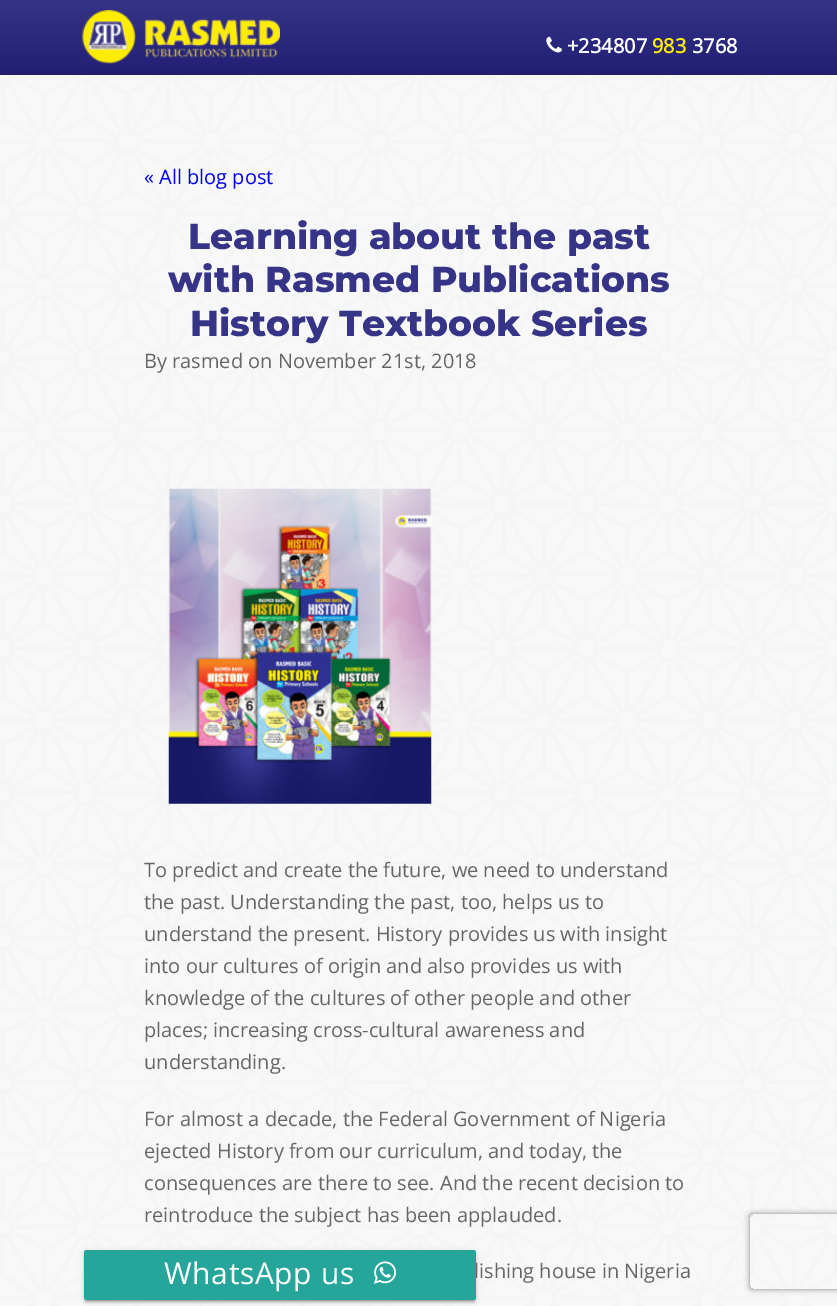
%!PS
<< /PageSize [837 1306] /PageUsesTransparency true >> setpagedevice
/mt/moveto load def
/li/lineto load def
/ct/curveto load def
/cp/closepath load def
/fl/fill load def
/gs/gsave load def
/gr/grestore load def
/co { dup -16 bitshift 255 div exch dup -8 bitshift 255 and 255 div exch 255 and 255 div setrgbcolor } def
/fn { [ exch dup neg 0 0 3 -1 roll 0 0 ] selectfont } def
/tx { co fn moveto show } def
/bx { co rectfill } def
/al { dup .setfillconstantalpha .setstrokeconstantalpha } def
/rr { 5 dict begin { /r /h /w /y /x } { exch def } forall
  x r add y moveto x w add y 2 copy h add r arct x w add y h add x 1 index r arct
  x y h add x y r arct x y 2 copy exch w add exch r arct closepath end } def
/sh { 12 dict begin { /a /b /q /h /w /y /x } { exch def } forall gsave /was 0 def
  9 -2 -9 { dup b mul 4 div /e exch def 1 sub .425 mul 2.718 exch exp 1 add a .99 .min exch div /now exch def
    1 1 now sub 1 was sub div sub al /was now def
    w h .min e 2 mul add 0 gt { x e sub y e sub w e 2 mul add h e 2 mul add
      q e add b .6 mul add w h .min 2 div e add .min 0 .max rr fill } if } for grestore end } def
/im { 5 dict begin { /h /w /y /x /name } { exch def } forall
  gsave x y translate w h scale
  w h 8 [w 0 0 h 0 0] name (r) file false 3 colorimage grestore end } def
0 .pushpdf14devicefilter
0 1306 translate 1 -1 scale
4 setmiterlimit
0 0 837 1306 16#FFFFFF bx
(media/1.raw) 0 75 837 1231 im
gs 0 0 mt 837 0 li 837 75 li 0 75 li cp clip newpath
<< /ShadingType 2 /ColorSpace /DeviceRGB /Coords [419 0 419 75] /Extend [true true] /Function << /FunctionType 2 /Domain [0 1] /C0 [.212 .204 .525] /C1 [.129 .118 .455] /N 1 >> >> shfill gr
(media/2.raw) 81 10 199 54 im
(media/3.raw) 546 36 16 17 im
(media/4.raw) 168 488 264 316 im
gs
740 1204 mt 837 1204 li 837 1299 li 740 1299 li cp 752.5 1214 mt 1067.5 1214 li 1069 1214 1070 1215 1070 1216.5 ct 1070 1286.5 li 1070 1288 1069 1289 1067.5 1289 ct 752.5 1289 li 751 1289 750 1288 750 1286.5 ct 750 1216.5 li 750 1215 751 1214 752.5 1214 ct cp eoclip newpath
16#808080 co
750 1214 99 75 2.5 3 1 sh
gr
16#000000 co
86 1256 388 45 0 .5 .2 sh
84 1251 392 50 2.5 3 .12 sh
84 1253 392 50 2.5 1 .14 sh
(+234807) 567 53 /OpenSans-Bold 20 16#FFFFFF tx
(983) 652 53 /OpenSans-Bold 20 16#FDEC06 tx
(3768) 692 53 /OpenSans-Bold 20 16#FFFFFF tx
(« All blog post) 144 184 /OpenSans-Regular 20 16#0000EE tx
(Learning about the past) 188 249 /Montserrat-ExtraBold 36 16#363486 tx
(with Rasmed Publications) 168 292 /Montserrat-ExtraBold 36 16#363486 tx
(History Textbook Series) 190 336 /Montserrat-ExtraBold 36 16#363486 tx
(By rasmed on November 21st, 2018) 144 368 /OpenSans-Regular 20 16#666666 tx
(To predict and create the future, we need to understand) 144 877 /OpenSans-Regular 20 16#666666 tx
(the past. Understanding the past, too, helps us to) 144 909 /OpenSans-Regular 20 16#666666 tx
(understand the present. History provides us with insight) 144 941 /OpenSans-Regular 20 16#666666 tx
(into our cultures of origin and also provides us with) 144 973 /OpenSans-Regular 20 16#666666 tx
(knowledge of the cultures of other people and other) 144 1005 /OpenSans-Regular 20 16#666666 tx
(places; increasing cross-cultural awareness and) 144 1037 /OpenSans-Regular 20 16#666666 tx
(understanding.) 144 1069 /OpenSans-Regular 20 16#666666 tx
(For almost a decade, the Federal Government of Nigeria) 144 1126 /OpenSans-Regular 20 16#666666 tx
(ejected History from our curriculum, and today, the) 144 1158 /OpenSans-Regular 20 16#666666 tx
(consequences are there to see. And the recent decision to) 144 1190 /OpenSans-Regular 20 16#666666 tx
(reintroduce the subject has been applauded.) 144 1222 /OpenSans-Regular 20 16#666666 tx
(lishing house in Nigeria) 474 1278 /OpenSans-Regular 20 16#666666 tx
16#26A69A co
84 1250 392 50 2.5 rr fl
/OpenSans-Regular 30 fn
16#FFFFFF co
164 1284 mt .6 0 (WhatsApp us) ashow
(media/5.raw) 373 1261 23 23 im
.poppdf14devicefilter showpage
